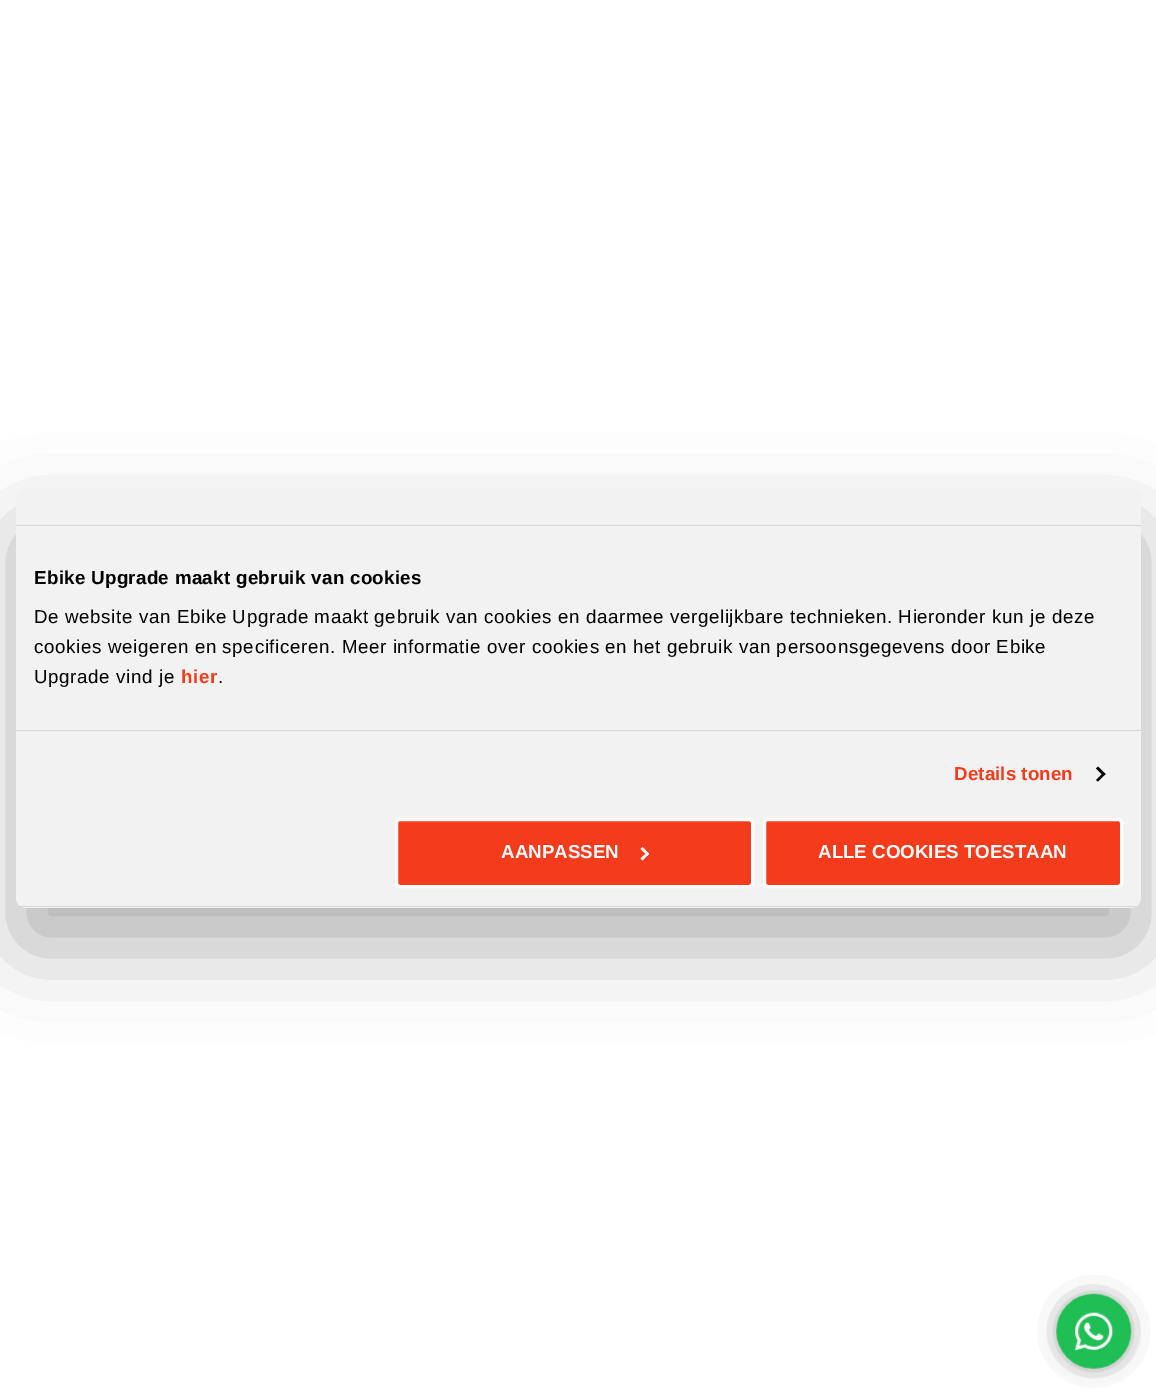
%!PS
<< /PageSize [1156 1393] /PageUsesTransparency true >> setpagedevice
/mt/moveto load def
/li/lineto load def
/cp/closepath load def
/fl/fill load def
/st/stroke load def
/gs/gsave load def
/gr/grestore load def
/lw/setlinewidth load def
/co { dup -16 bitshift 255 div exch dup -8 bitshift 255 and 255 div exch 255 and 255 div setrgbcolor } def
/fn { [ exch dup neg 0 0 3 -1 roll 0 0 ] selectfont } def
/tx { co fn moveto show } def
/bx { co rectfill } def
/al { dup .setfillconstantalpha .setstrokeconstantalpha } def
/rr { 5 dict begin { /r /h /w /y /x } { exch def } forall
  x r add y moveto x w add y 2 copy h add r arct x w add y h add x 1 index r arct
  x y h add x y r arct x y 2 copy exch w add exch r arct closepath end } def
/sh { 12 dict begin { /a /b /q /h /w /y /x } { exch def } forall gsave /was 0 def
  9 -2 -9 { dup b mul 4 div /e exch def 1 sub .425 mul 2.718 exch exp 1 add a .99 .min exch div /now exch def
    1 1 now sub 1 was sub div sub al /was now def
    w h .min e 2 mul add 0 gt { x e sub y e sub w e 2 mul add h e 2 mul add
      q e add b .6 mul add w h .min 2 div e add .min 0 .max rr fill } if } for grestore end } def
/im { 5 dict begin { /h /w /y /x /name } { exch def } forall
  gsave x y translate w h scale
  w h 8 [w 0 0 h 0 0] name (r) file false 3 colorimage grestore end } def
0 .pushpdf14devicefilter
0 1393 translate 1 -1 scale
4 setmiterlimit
0 0 1156 1393 16#FFFFFF bx
16#000000 co
16 528 1125 420 10 42.5 .3 sh
16#F2F2F2 co
16 488 1125 420 10 rr fl
16 525 1125 1 16#D6D6D6 bx
16 730 1125 1 16#D6D6D6 bx
16#000000 co
1098 766.5 mt 1105.5 774 li 1103.5 776 li 1096 768.5 li cp fl
1103.5 772.5 mt 1105.5 774 li 1098 781.5 li 1096 780 li cp fl
gs
16 488 1125 420 10 rr clip newpath
16 906 1125 1 16#D6D6D6 bx
gr
16#F43C1D co
396.5 819.5 356 67 3.5 rr gs fl gr
16#FFFFFF co
3 lw
st
642.5 847 mt 649 854 li 647.5 855.5 li 640.5 849 li cp fl
647.5 852 mt 649 854 li 642.5 860.5 li 640.5 858.5 li cp fl
16#F43C1D co
764.5 819.5 357 67 3.5 rr gs fl gr
16#FFFFFF co
st
(media/1.raw) 1037 1275 113 113 im
/LiberationSans-Bold 18.75 fn
16#000000 co
34 584 mt .3 0 (Ebike Upgrade maakt gebruik van cookies) ashow
/LiberationSans-Regular 18.75 fn
34 623 mt .62 0 (De website van Ebike Upgrade maakt gebruik van cookies en daarmee vergelijkbare technieken. Hieronder kun je deze) ashow
34 653 mt .62 0 (cookies weigeren en specificeren. Meer informatie over cookies en het gebruik van persoonsgegevens door Ebike) ashow
34 683 mt .62 0 (Upgrade vind je) ashow
/LiberationSans-Bold 18.75 fn
16#F43C1D co
181 683 mt .62 0 (hier) ashow
/LiberationSans-Regular 18.75 fn
16#000000 co
218 683 mt .62 0 (.) ashow
/LiberationSans-Bold 18.75 fn
16#F43C1D co
954 780 mt .1 0 (Details tonen) ashow
(AANPASSEN) 501 858 /LiberationSans-Bold 18.75 16#FFFFFF tx
(ALLE COOKIES TOESTAAN) 818 858 /LiberationSans-Bold 18.75 16#FFFFFF tx
.poppdf14devicefilter showpage
